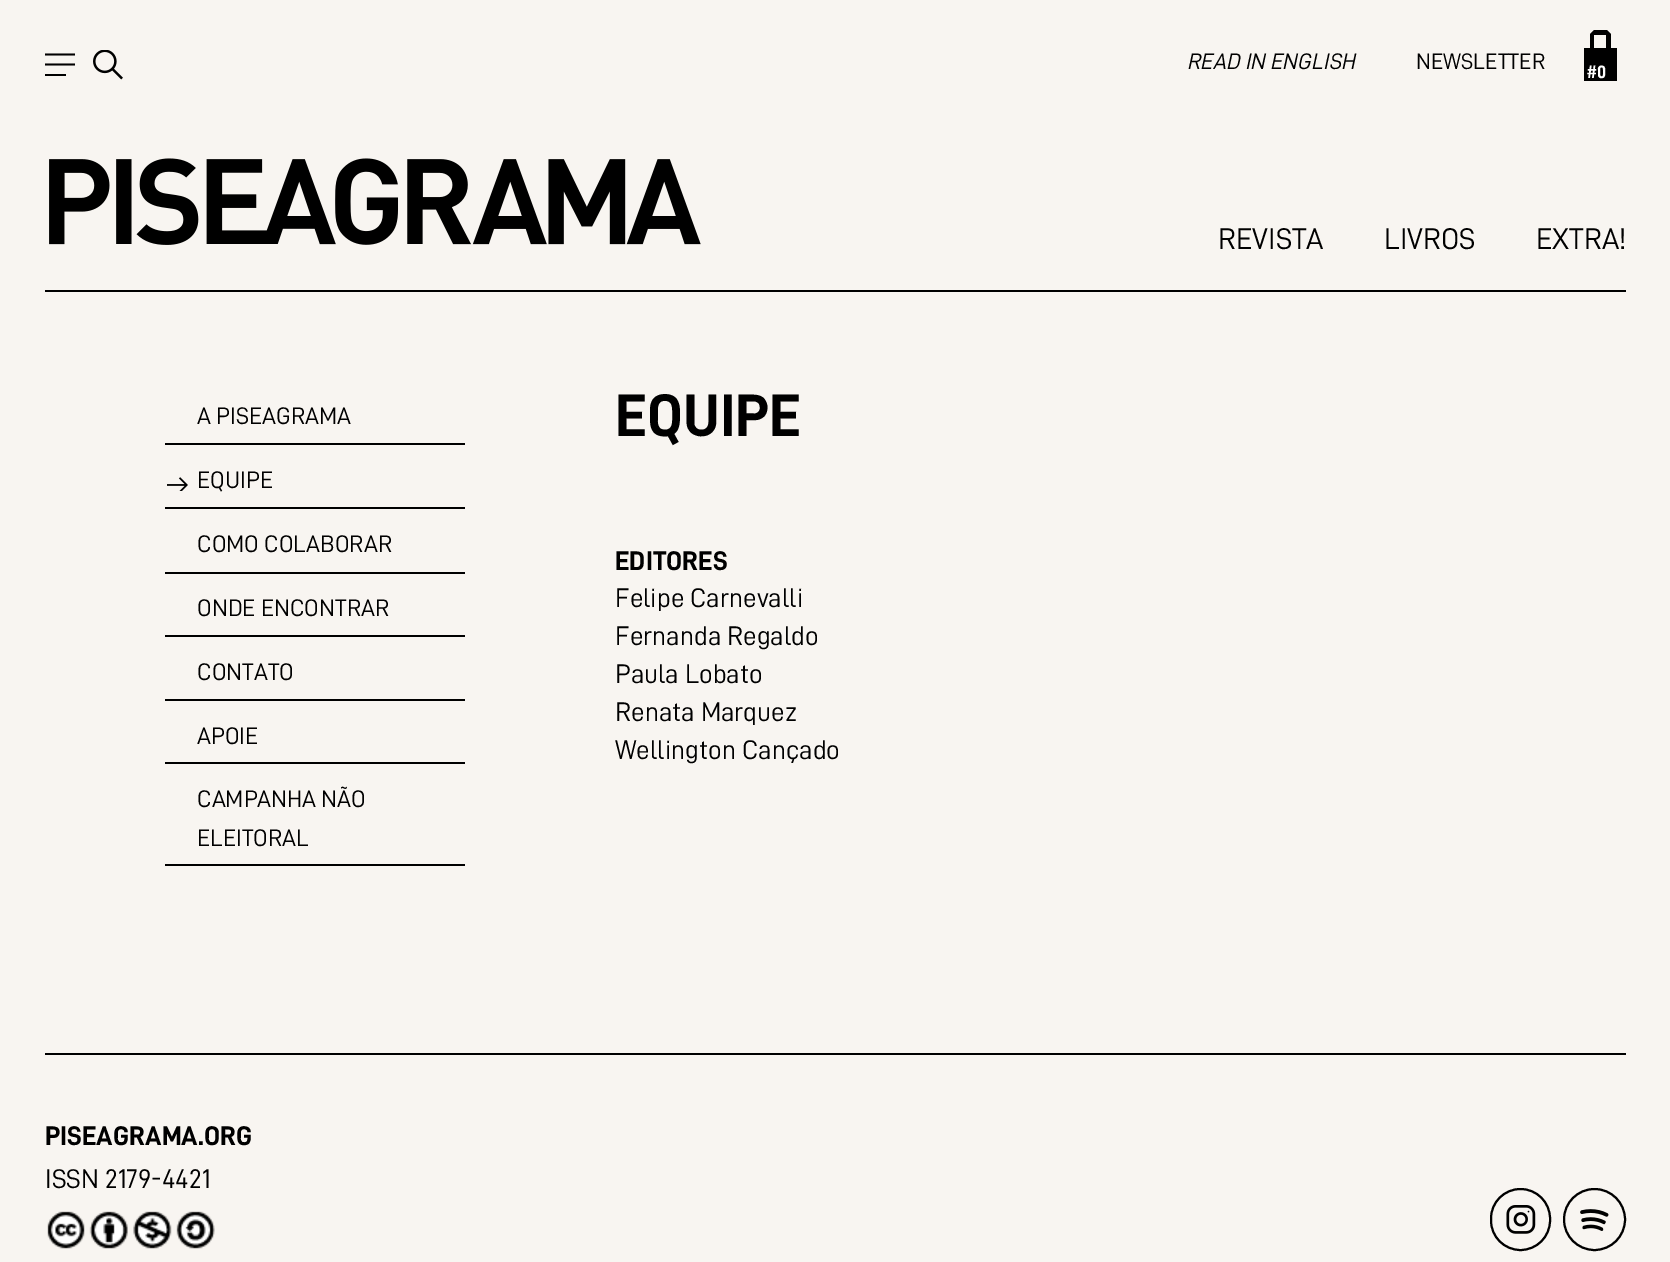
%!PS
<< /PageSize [1670 1262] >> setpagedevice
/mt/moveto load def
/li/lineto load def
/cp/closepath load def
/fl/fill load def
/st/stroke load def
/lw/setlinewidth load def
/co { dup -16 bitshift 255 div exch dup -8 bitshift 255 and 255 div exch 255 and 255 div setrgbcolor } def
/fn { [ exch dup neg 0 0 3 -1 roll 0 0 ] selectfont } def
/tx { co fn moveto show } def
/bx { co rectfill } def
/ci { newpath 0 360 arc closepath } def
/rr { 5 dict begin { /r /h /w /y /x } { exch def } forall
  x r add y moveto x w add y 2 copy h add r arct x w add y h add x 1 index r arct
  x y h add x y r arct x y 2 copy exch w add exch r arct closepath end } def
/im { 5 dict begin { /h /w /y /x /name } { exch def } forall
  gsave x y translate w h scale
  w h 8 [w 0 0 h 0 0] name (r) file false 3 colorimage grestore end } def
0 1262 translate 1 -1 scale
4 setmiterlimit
0 0 1670 1262 16#F8F5F1 bx
45 290 1581 2 16#000000 bx
45 53.5 mt 75 53.5 li 75 55.5 li 45 55.5 li cp 45 63.5 mt 75 63.5 li 75 65.5 li 45 65.5 li cp fl
45 74 21 2 16#000000 bx
(media/1.raw) 93 50 30 30 im
1611 48 mt 1611 34 li 1607 30 li 1594 30 li 1590 34 li 1590 48 li 1584 48 li 1584 81 li 1617 81 li 1617 48 li cp 1594 35 mt 1606 35 li 1606 48 li 1594 48 li cp fl
(media/2.raw) 49 158 652 87 im
165 443 300 2 16#000000 bx
165 507 300 2 16#000000 bx
(media/3.raw) 167 477 21 14 im
165 572 300 2 16#000000 bx
165 635 300 2 16#000000 bx
165 699 300 2 16#000000 bx
165 762 300 2 16#000000 bx
165 864 300 2 16#000000 bx
45 1053 1581 2 16#000000 bx
(media/4.raw) 47 1211 168 38 im
2 lw
1491 1189 59 61 29.5 rr st
(media/5.raw) 1506 1205 30 29 im
1594.5 1219.5 30.5 ci st
(media/6.raw) 1580 1209 29 22 im
(READ IN ENGLISH) 1188 69 /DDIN-Italic 22.5 16#000000 tx
(NEWSLETTER) 1416 69 /DDIN-Regular 22.5 16#000000 tx
(#0) 1587 78 /DDIN-Bold 18 16#FFFFFF tx
(REVISTA) 1218 249 /DDIN-Regular 30 16#000000 tx
(LIVROS) 1384 249 /DDIN-Regular 30 16#000000 tx
(EXTRA!) 1536 249 /DDIN-Regular 30 16#000000 tx
(A PISEAGRAMA) 197 424 /DDIN-Regular 24 16#000000 tx
(EQUIPE) 197 488 /DDIN-Regular 24 16#000000 tx
(COMO COLABORAR) 197 552 /DDIN-Regular 24 16#000000 tx
(ONDE ENCONTRAR) 197 616 /DDIN-Regular 24 16#000000 tx
(CONTATO) 197 680 /DDIN-Regular 24 16#000000 tx
(APOIE) 197 744 /DDIN-Regular 24 16#000000 tx
(CAMPANHA NÃO) 197 807 /DDIN-Regular 24 16#000000 tx
(ELEITORAL) 197 846 /DDIN-Regular 24 16#000000 tx
(EQUIPE) 615 436 /DDIN-Bold 60 16#000000 tx
(EDITORES) 615 570 /DDIN-Bold 27 16#000000 tx
(Felipe Carnevalli) 615 607 /DDIN-Regular 27 16#000000 tx
(Fernanda Regaldo) 615 645 /DDIN-Regular 27 16#000000 tx
(Paula Lobato) 615 683 /DDIN-Regular 27 16#000000 tx
(Renata Marquez) 615 721 /DDIN-Regular 27 16#000000 tx
(Wellington Cançado) 615 759 /DDIN-Regular 27 16#000000 tx
(PISEAGRAMA.ORG) 45 1145 /DDIN-Bold 27 16#000000 tx
(ISSN 2179-4421) 45 1188 /DDIN-Regular 27 16#000000 tx
showpage
